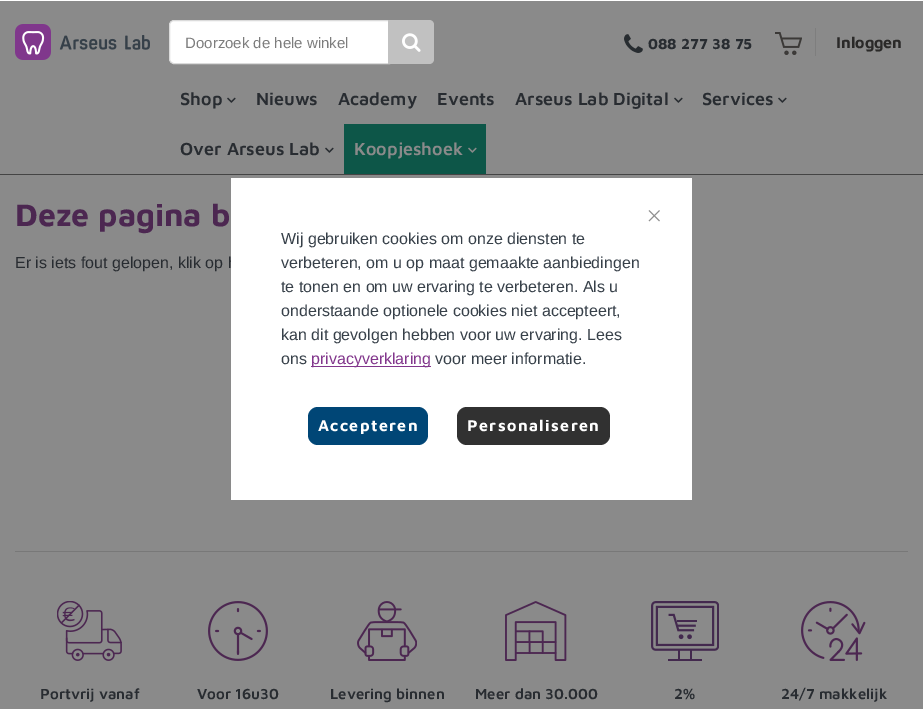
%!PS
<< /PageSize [923 709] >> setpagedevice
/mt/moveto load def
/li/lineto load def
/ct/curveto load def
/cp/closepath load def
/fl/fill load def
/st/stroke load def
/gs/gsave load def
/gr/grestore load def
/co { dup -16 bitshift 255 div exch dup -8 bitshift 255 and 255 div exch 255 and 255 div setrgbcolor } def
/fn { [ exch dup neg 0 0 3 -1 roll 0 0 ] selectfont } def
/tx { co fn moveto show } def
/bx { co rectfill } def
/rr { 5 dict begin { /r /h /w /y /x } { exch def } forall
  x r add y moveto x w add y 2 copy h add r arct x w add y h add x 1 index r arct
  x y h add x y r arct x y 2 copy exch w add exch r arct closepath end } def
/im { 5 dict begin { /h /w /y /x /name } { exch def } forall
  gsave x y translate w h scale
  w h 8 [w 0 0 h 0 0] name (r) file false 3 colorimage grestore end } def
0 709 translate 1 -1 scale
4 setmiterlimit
0 0 923 709 16#FFFFFF bx
0 1 923 708 16#8A8A8A bx
(media/1.raw) 15 24 135 36 im
16#FFFFFF co
174 20.5 mt 389.5 20.5 li 389.5 63.5 li 174 63.5 li 171.5 63.5 169.5 61.5 169.5 59 ct 169.5 25 li 169.5 22.5 171.5 20.5 174 20.5 ct cp gs fl gr
16#DBDBDB co
st
16#C1C1C1 co
388 20 mt 429 20 li 432 20 434 22 434 25 ct 434 59 li 434 62 432 64 429 64 ct 388 64 li cp fl
(media/2.raw) 402 33 19 19 im
(media/3.raw) 624 34 19 19 im
(media/4.raw) 775 32 27 23 im
815 28 1 28 16#7E7E7E bx
0 174 923 1 16#444444 bx
(media/5.raw) 227 97 9 6 im
(media/5.raw) 674 97 9 6 im
(media/5.raw) 778 97 9 6 im
(media/5.raw) 325 147 9 6 im
344 124 142 50 16#0D5648 bx
(media/6.raw) 468 147 9 6 im
15 551 893 1 16#787878 bx
(media/7.raw) 57 601 65 60 im
(media/8.raw) 208 601 60 60 im
(media/9.raw) 357 601 60 60 im
(media/10.raw) 505 601 62 60 im
(media/11.raw) 651 601 68 60 im
(media/12.raw) 801 601 65 60 im
(Doorzoek de hele winkel) 185 48 /LiberationSans-Regular 15 16#7D7D7D tx
(088 277 38 75) 648 49 /MavenPro-Bold 15 16#282C31 tx
(Inloggen) 836 48 /MavenPro-Bold 16 16#2A2928 tx
(Shop) 180 105 /MavenPro-SemiBold 18 16#282C31 tx
(Nieuws) 256 105 /MavenPro-SemiBold 18 16#282C31 tx
(Academy) 338 105 /MavenPro-SemiBold 18 16#282C31 tx
(Events) 437 105 /MavenPro-SemiBold 18 16#282C31 tx
(Arseus Lab Digital) 515 105 /MavenPro-SemiBold 18 16#282C31 tx
(Services) 702 105 /MavenPro-SemiBold 18 16#282C31 tx
(Over Arseus Lab) 180 155 /MavenPro-SemiBold 18 16#282C31 tx
(Koopjeshoek) 354 155 /MavenPro-SemiBold 18 16#8A8A8A tx
(Deze pagina b) 15 226 /MavenPro-Bold 32 16#4C2751 tx
(Er is iets fout gelopen, klik op h) 15 268 /LiberationSans-Regular 16 16#282C31 tx
(Portvrij vanaf) 40 699 /MavenPro-SemiBold 15 16#282C31 tx
(Voor 16u30) 197 699 /MavenPro-SemiBold 15 16#282C31 tx
(Levering binnen) 330 699 /MavenPro-SemiBold 15 16#282C31 tx
(Meer dan 30.000) 475 699 /MavenPro-SemiBold 15 16#282C31 tx
(2%) 674 699 /MavenPro-SemiBold 15 16#282C31 tx
(24/7 makkelijk) 781 699 /MavenPro-SemiBold 15 16#282C31 tx
231 178 461 322 16#FFFFFF bx
(media/13.raw) 648 210 12 12 im
(Wij gebruiken cookies om onze diensten te) 281 244 /LiberationSans-Regular 16 16#374049 tx
(verbeteren, om u op maat gemaakte aanbiedingen) 281 268 /LiberationSans-Regular 16 16#374049 tx
(te tonen en om uw ervaring te verbeteren. Als u) 281 292 /LiberationSans-Regular 16 16#374049 tx
(onderstaande optionele cookies niet accepteert,) 281 316 /LiberationSans-Regular 16 16#374049 tx
(kan dit gevolgen hebben voor uw ervaring. Lees) 281 340 /LiberationSans-Regular 16 16#374049 tx
(ons) 281 364 /LiberationSans-Regular 16 16#374049 tx
311 366 120 1 16#82368C bx
(privacyverklaring) 311 364 /LiberationSans-Regular 16 16#82368C tx
(voor meer informatie.) 435 364 /LiberationSans-Regular 16 16#374049 tx
16#004676 co
308 407 120 38 10 rr fl
/MavenPro-Bold 16 fn
16#FFFFFF co
318 431 mt 1.4 0 (Accepteren) ashow
16#313131 co
457 407 153 38 10 rr fl
16#FFFFFF co
467 431 mt 1.4 0 (Personaliseren) ashow
showpage
